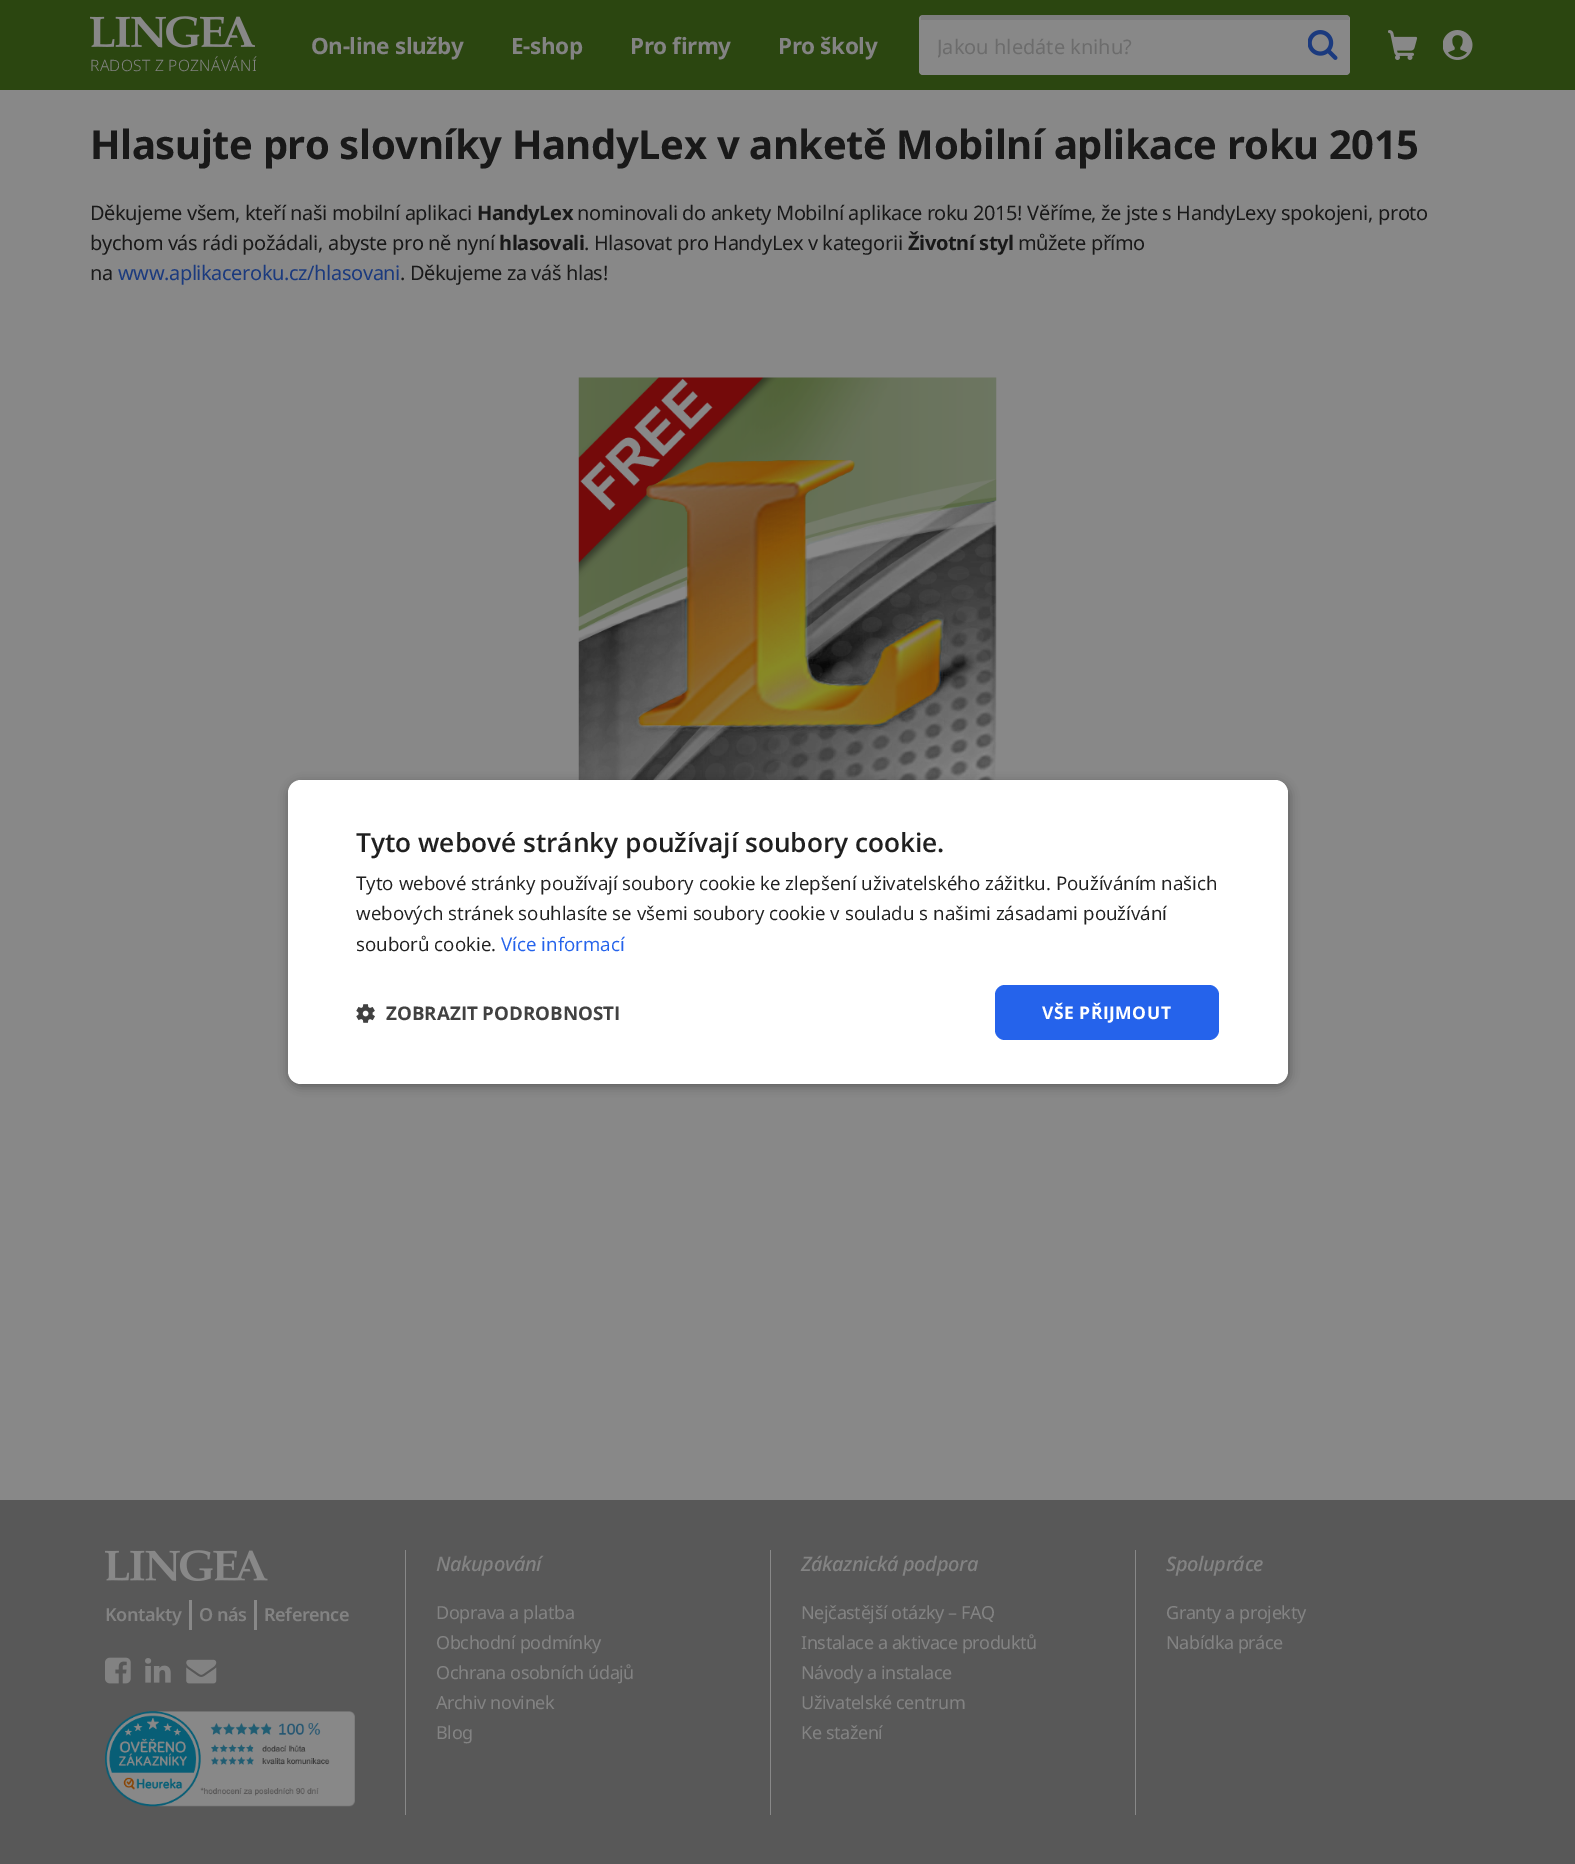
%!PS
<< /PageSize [1575 1864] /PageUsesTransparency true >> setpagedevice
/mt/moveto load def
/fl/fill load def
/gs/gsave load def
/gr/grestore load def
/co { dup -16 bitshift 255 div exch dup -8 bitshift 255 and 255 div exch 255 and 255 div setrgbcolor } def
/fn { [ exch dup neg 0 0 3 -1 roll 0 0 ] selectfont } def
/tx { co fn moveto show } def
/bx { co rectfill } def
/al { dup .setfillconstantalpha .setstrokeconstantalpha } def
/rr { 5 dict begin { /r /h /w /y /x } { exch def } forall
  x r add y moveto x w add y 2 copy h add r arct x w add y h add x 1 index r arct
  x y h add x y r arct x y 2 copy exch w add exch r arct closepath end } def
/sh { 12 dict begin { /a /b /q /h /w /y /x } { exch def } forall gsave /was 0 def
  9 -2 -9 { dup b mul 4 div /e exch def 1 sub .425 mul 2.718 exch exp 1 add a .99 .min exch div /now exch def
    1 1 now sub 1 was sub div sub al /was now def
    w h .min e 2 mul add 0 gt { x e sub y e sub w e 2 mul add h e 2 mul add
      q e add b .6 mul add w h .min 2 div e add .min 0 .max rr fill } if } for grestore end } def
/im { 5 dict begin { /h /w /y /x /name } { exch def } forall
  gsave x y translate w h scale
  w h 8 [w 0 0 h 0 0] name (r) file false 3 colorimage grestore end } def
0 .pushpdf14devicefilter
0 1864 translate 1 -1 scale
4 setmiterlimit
0 0 1575 1864 16#888888 bx
0 0 1575 90 16#2B4610 bx
16#888888 co
919 15 431 60 4 rr fl
0.1 al
921 15 428 5 16#191919 bx
1 al
(media/1.raw) 1308 30 30 30 im
(media/2.raw) 1388 30 30 30 im
(media/3.raw) 1443 30 30 30 im
(media/4.raw) 90 16 165 32 im
(media/5.raw) 578 377 419 403 im
0 1500 1575 364 16#585858 bx
405 1550 1 265 16#888888 bx
(media/6.raw) 105 1550 163 31 im
189 1600 3 30 16#888888 bx
254 1600 3 30 16#888888 bx
(media/7.raw) 105 1657 26 27 im
(media/8.raw) 145 1658 26 25 im
(media/9.raw) 186 1659 31 25 im
(media/10.raw) 105 1711 250 96 im
770 1550 1 265 16#888888 bx
1135 1550 1 265 16#888888 bx
16#000000 co
289 783 1000 303 13 5 .35 sh
16#FFFFFF co
288 780 1000 304 13 rr fl
(media/11.raw) 356 1004 19 19 im
16#2563EB co
995 985 224 55 10 rr fl
/NotoSans-Bold 22.5 fn
16#838383 co
311 54 mt -.4 0 (On-line služby) ashow
511 54 mt -.4 0 (E-shop) ashow
630 54 mt -.4 0 (Pro firmy) ashow
778 54 mt -.4 0 (Pro školy) ashow
gs
938 34 350 27 rectclip
(Jakou hledáte knihu?) 937 54 /NotoSans-Regular 20 16#6C6C6C tx
gr
/NotoSans-Light 15.6 fn
90 71 mt .3 0 (RADOST Z POZNÁVÁNÍ) ashow
/NotoSans-Bold 40 fn
16#191919 co
90 159 mt -.4 0 (Hlasujte pro slovníky HandyLex v anketě Mobilní aplikace roku 2015) ashow
/NotoSans-Regular 20 fn
90 220 mt -.4 0 (Děkujeme všem, kteří naši mobilní aplikaci) ashow
/NotoSans-Bold 20 fn
477 220 mt -.4 0 (HandyLex) ashow
/NotoSans-Regular 20 fn
577 220 mt -.4 0 (nominovali do ankety Mobilní aplikace roku 2015! Věříme, že jste s HandyLexy spokojeni, proto) ashow
90 250 mt -.4 0 (bychom vás rádi požádali, abyste pro ně nyní) ashow
/NotoSans-Bold 20 fn
499 250 mt -.4 0 (hlasovali) ashow
/NotoSans-Regular 20 fn
584 250 mt -.4 0 (. Hlasovat pro HandyLex v kategorii) ashow
/NotoSans-Bold 20 fn
908 250 mt -.4 0 (Životní styl) ashow
/NotoSans-Regular 20 fn
1018 250 mt -.4 0 (můžete přímo) ashow
90 280 mt -.4 0 (na) ashow
16#1B3A7E co
118 280 mt -.4 0 (www.aplikaceroku.cz/hlasovani) ashow
16#191919 co
400 280 mt -.4 0 (. Děkujeme za váš hlas!) ashow
/NotoSans-SemiBold 18 fn
16#838383 co
105 1621 mt -.4 0 (Kontakty) ashow
199 1621 mt -.4 0 (O nás) ashow
264 1621 mt -.4 0 (Reference) ashow
/NotoSans-MediumItalic 20 fn
436 1571 mt -.4 0 (Nakupování) ashow
/NotoSans-Regular 18 fn
436 1619 mt -.4 0 (Doprava a platba) ashow
436 1649 mt -.4 0 (Obchodní podmínky) ashow
436 1679 mt -.4 0 (Ochrana osobních údajů) ashow
436 1709 mt -.4 0 (Archiv novinek) ashow
436 1739 mt -.4 0 (Blog) ashow
/NotoSans-MediumItalic 20 fn
801 1571 mt -.4 0 (Zákaznická podpora) ashow
/NotoSans-Regular 18 fn
801 1619 mt -.4 0 (Nejčastější otázky – FAQ) ashow
801 1649 mt -.4 0 (Instalace a aktivace produktů) ashow
801 1679 mt -.4 0 (Návody a instalace) ashow
801 1709 mt -.4 0 (Uživatelské centrum) ashow
801 1739 mt -.4 0 (Ke stažení) ashow
/NotoSans-MediumItalic 20 fn
1166 1571 mt -.4 0 (Spolupráce) ashow
/NotoSans-Regular 18 fn
1166 1619 mt -.4 0 (Granty a projekty) ashow
1166 1649 mt -.4 0 (Nabídka práce) ashow
(Tyto webové stránky používají soubory cookie.) 356 852 /OpenSans-SemiBold 26.25 16#202020 tx
(Tyto webové stránky používají soubory cookie ke zlepšení uživatelského zážitku. Používáním našich) 356 890 /OpenSans-Regular 18.75 16#202020 tx
(webových stránek souhlasíte se všemi soubory cookie v souladu s našimi zásadami používání) 356 920 /OpenSans-Regular 18.75 16#202020 tx
(souborů cookie.) 356 951 /OpenSans-Regular 18.75 16#202020 tx
(Více informací) 501 951 /OpenSans-Regular 18.75 16#2563EB tx
(ZOBRAZIT PODROBNOSTI) 386 1020 /OpenSans-Bold 18.75 16#414141 tx
/OpenSans-Bold 17.5 fn
16#FFFFFF co
1042 1019 mt .5 0 (VŠE PŘIJMOUT) ashow
.poppdf14devicefilter showpage
